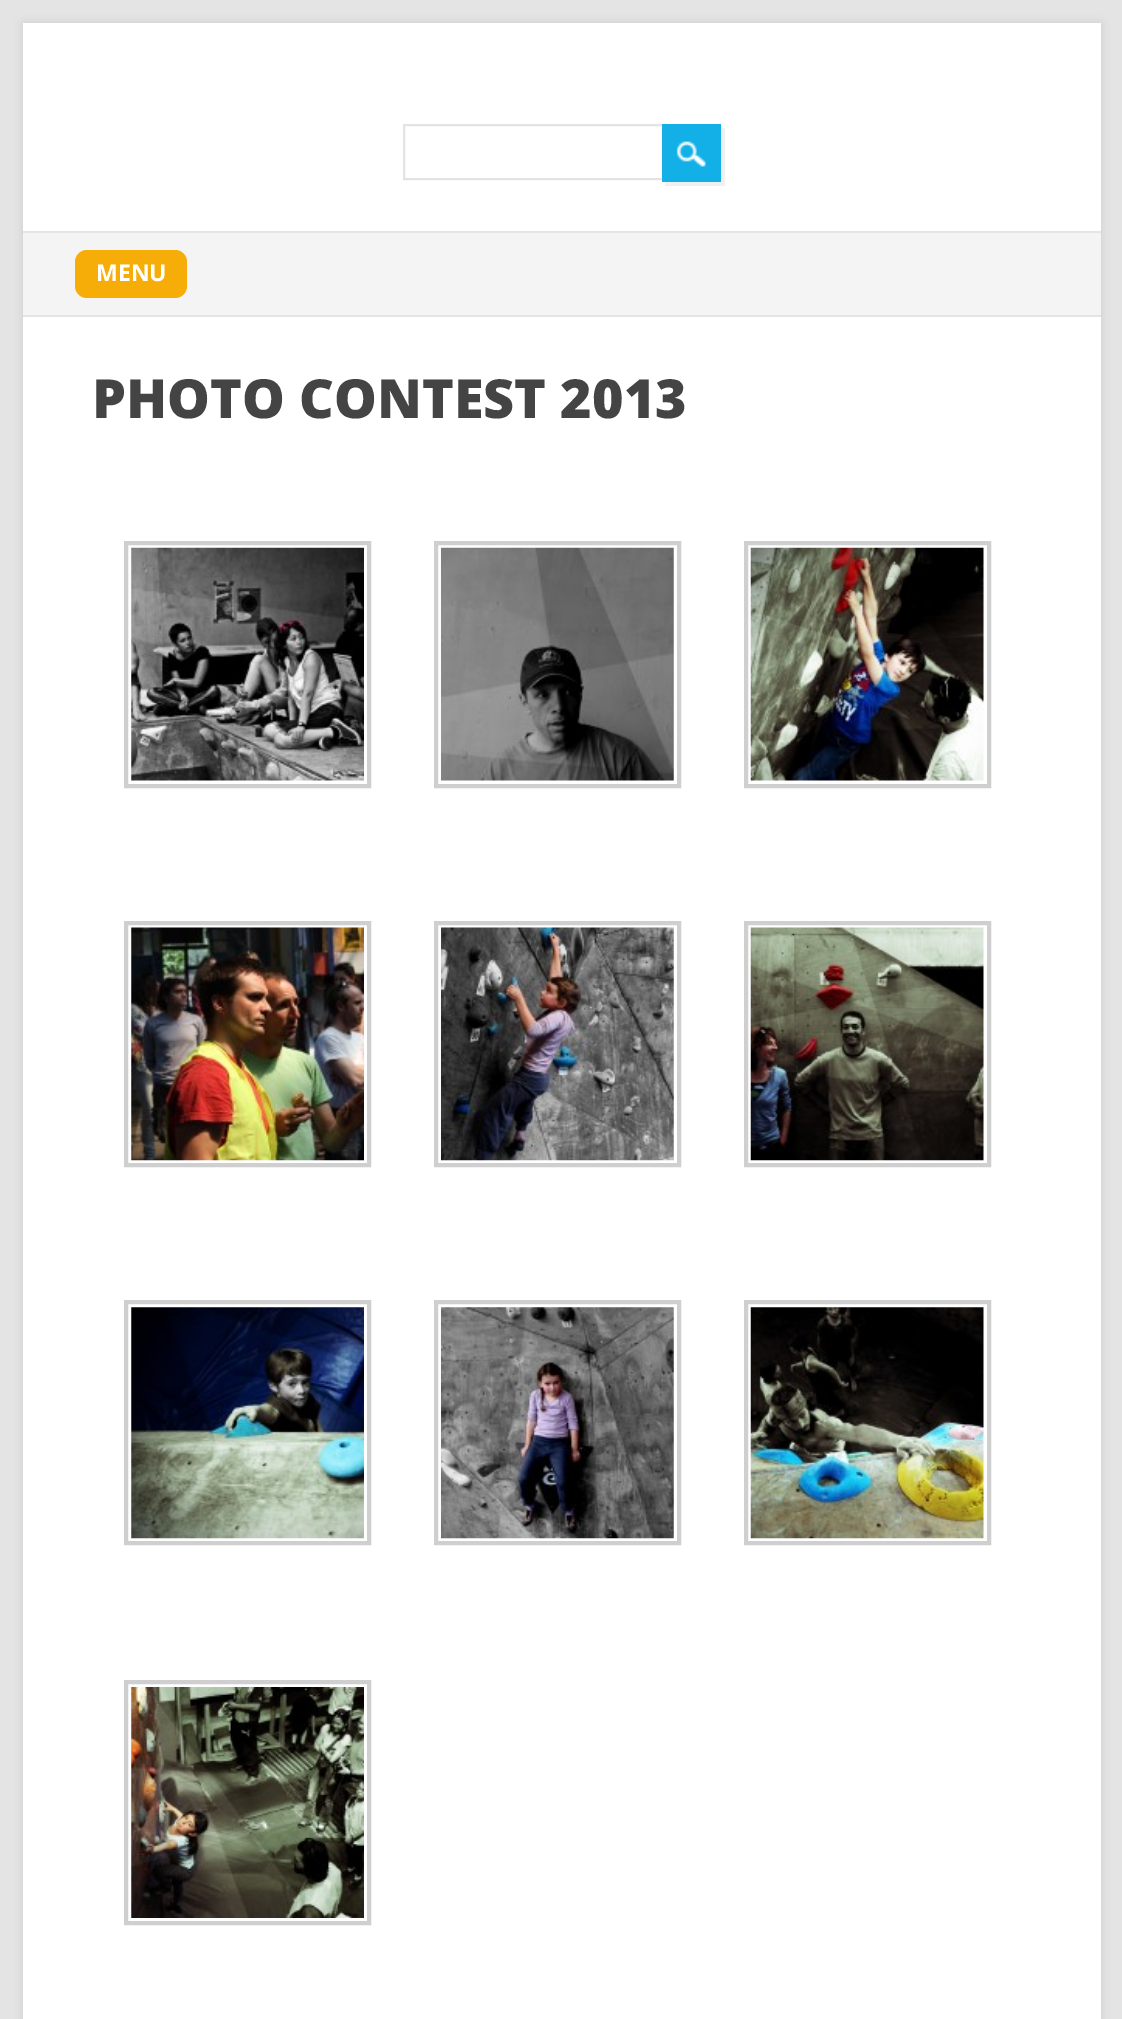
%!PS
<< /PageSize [1122 2019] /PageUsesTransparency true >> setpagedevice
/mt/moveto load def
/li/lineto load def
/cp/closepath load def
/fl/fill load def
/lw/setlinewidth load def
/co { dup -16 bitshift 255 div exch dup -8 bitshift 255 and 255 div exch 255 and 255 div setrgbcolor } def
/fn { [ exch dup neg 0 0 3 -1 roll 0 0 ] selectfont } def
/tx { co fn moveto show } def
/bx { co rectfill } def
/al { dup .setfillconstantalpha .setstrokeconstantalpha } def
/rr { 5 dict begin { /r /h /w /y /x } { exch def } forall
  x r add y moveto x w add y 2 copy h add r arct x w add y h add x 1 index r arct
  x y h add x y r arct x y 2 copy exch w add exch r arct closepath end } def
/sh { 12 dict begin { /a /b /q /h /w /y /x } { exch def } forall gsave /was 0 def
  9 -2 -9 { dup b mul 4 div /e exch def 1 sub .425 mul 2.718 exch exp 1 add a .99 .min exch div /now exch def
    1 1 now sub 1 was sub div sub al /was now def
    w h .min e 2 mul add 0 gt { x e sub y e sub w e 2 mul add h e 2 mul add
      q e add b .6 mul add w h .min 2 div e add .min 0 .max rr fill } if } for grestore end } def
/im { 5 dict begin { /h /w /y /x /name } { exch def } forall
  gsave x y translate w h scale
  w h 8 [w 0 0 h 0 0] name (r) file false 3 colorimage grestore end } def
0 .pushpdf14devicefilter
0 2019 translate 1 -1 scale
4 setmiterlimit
0 0 1122 2019 16#E4E4E4 bx
16#CDCDCD co
23 23 1078 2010 0 4.5 1 sh
23 23 1078 208 16#FFFFFF bx
16#E3E3E3 co
2 lw
404 125 260 54 rectstroke
16#F0F0F0 co
665 182 mt 665 186 li 725 186 li 725 128 li 721 128 li 721 182 li cp fl
662 124 59 58 16#12B0E6 bx
(media/1.raw) 676 141 30 26 im
23 233 1078 82 16#F4F4F4 bx
23 231 1078 2 16#E4E4E4 bx
23 315 1078 2 16#E4E4E4 bx
16#F6AD08 co
75 250 112 48 12 rr fl
23 317 1078 1702 16#FFFFFF bx
16#CFCFCF co
4 lw
126 543 243 243 rectstroke
(media/2.raw) 131 547 233 234 im
436 543 243 243 rectstroke
(media/3.raw) 441 547 233 234 im
746 543 243 243 rectstroke
(media/4.raw) 750 547 234 234 im
126 923 243 242 rectstroke
(media/5.raw) 131 927 233 234 im
436 923 243 242 rectstroke
(media/6.raw) 441 927 233 234 im
746 923 243 242 rectstroke
(media/7.raw) 750 927 234 234 im
126 1302 243 241 rectstroke
(media/8.raw) 131 1307 233 232 im
436 1302 243 241 rectstroke
(media/9.raw) 441 1307 233 232 im
746 1302 243 241 rectstroke
(media/10.raw) 750 1307 234 232 im
126 1682 243 241 rectstroke
(media/11.raw) 131 1687 233 231 im
(MENU) 96 281 /OpenSans-Bold 23 16#FFFFFF tx
(PHOTO CONTEST 2013) 92 418 /OpenSans-ExtraBold 53.9 16#444444 tx
.poppdf14devicefilter showpage
